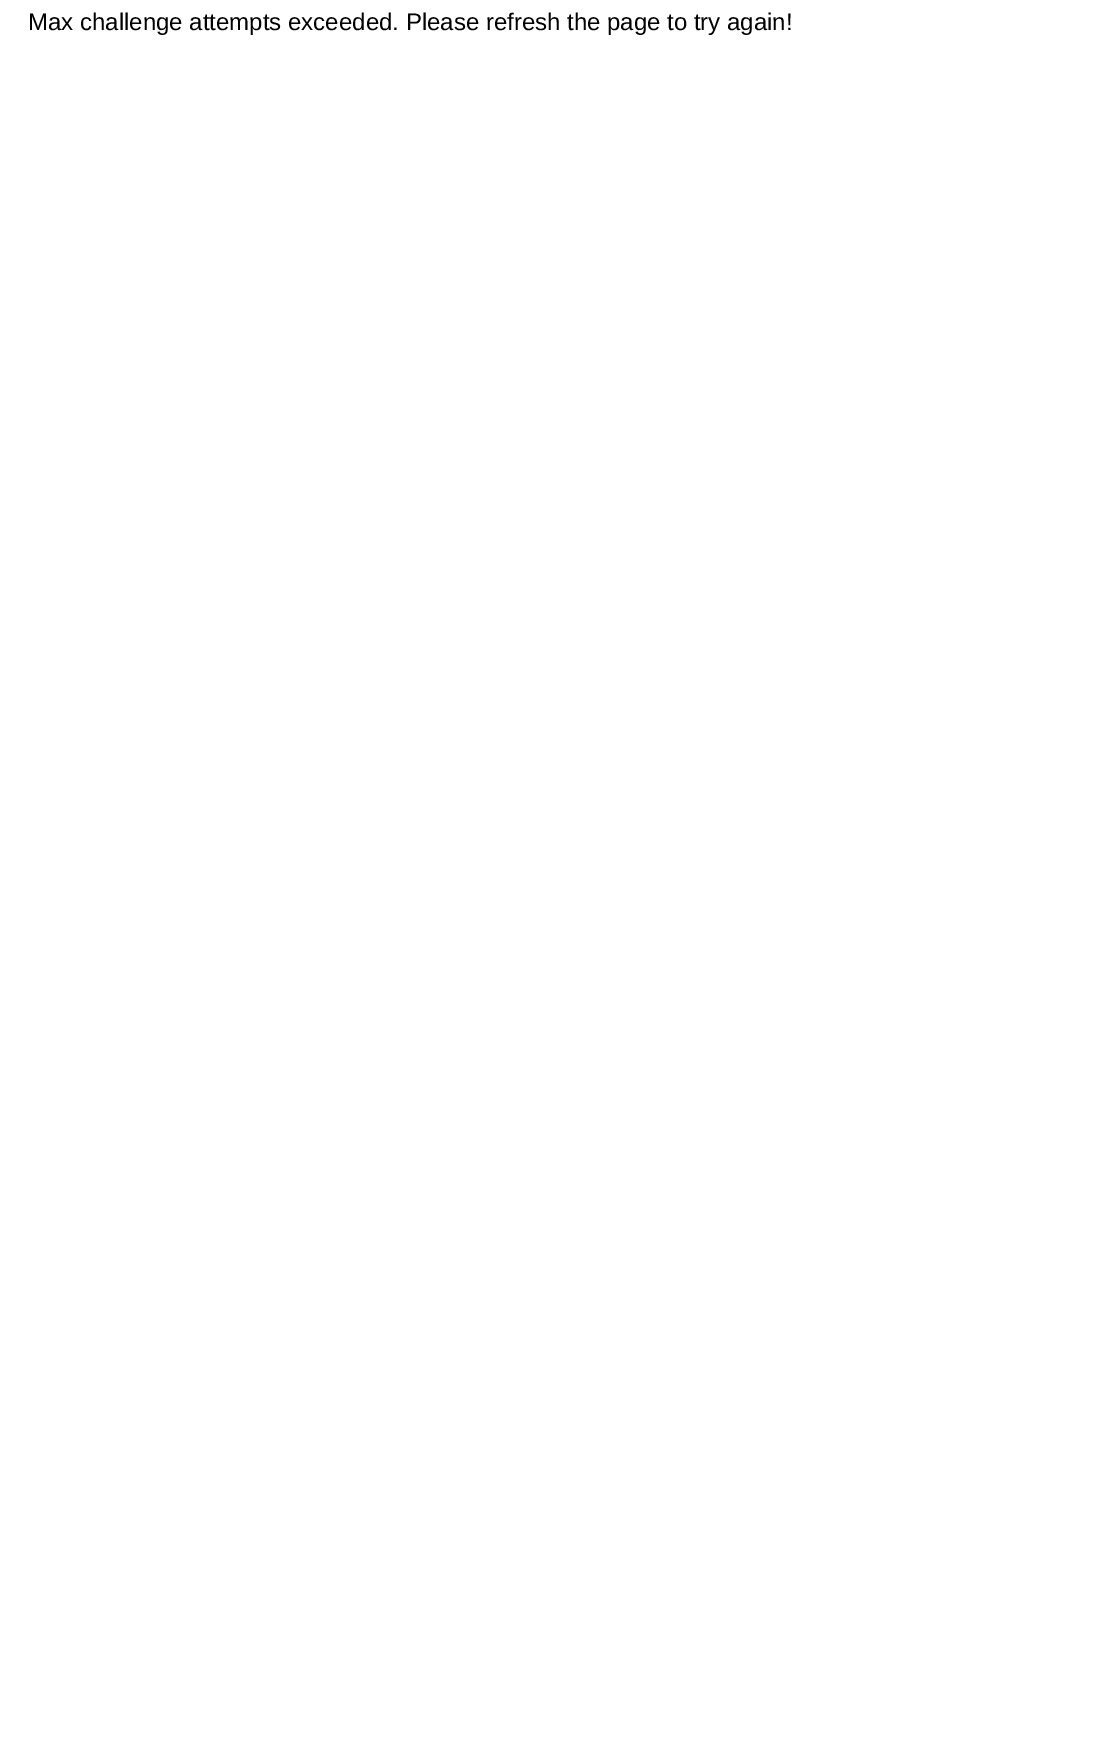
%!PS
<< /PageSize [1093 1761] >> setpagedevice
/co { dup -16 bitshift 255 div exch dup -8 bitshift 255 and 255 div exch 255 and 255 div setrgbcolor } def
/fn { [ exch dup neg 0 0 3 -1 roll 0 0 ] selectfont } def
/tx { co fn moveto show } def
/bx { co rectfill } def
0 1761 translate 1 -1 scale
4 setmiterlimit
0 0 1093 1761 16#FFFFFF bx
(Max challenge attempts exceeded. Please refresh the page to try again!) 28 30 /LiberationSans-Regular 24 16#000000 tx
showpage
